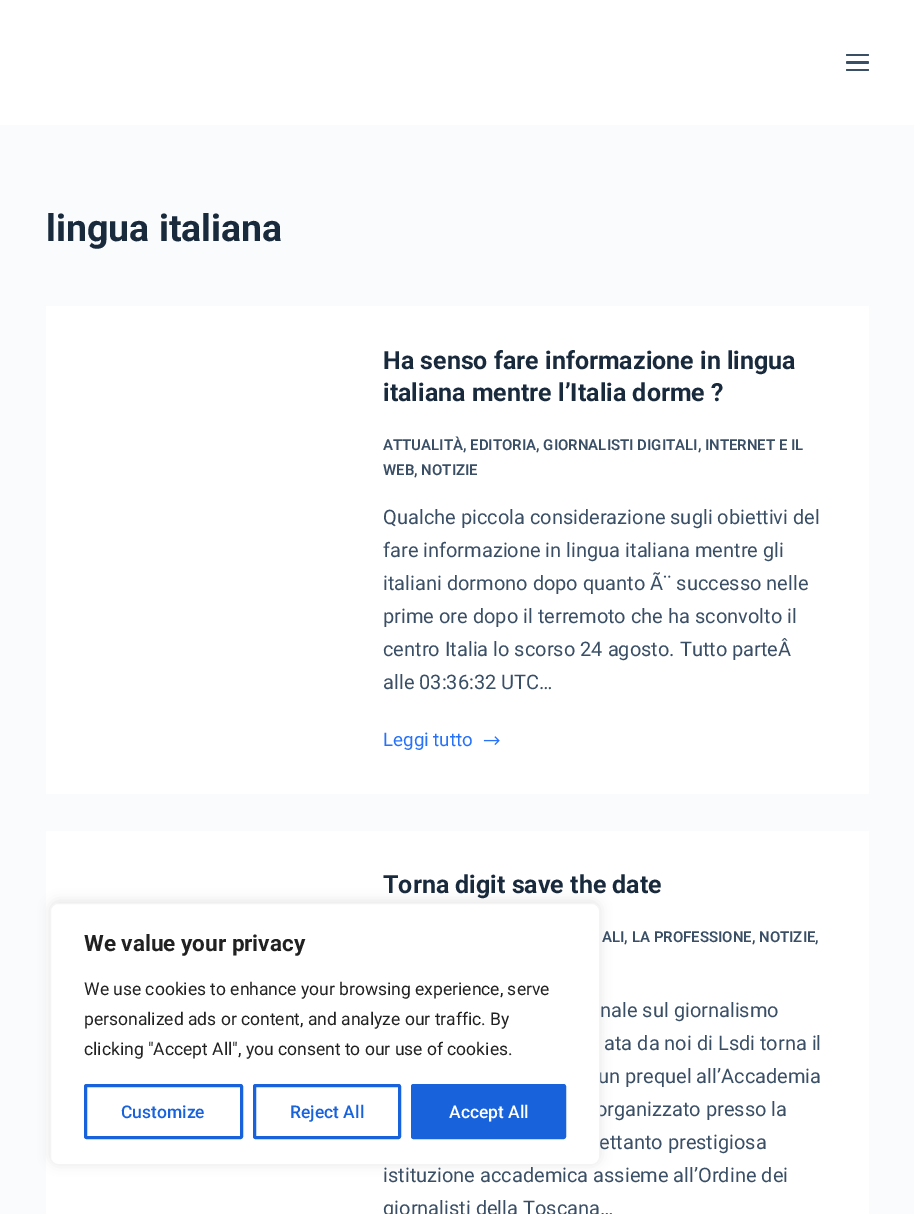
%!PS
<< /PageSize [914 1214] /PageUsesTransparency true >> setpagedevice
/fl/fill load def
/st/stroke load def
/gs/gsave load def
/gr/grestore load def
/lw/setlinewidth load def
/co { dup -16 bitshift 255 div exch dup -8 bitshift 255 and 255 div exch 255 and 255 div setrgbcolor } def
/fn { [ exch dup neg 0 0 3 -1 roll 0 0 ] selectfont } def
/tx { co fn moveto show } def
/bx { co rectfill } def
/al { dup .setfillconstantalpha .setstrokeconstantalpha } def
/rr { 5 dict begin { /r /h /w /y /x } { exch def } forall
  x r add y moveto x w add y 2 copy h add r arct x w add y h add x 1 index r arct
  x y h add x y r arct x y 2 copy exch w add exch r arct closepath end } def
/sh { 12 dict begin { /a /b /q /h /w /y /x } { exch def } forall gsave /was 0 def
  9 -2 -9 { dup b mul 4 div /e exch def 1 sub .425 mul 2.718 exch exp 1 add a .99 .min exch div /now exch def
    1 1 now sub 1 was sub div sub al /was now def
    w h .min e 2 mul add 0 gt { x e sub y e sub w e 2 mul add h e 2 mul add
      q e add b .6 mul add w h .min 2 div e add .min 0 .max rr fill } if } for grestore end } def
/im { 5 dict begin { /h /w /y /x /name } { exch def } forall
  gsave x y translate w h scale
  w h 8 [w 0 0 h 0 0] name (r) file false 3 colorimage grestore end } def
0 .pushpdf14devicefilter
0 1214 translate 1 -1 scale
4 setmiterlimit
0 0 914 1214 16#FAFBFC bx
0 0 914 125 16#FFFFFF bx
16#3A4F66 co
846 54 23 2 1 rr fl
846 61 23 3 1.5 rr fl
846 69 23 2 1 rr fl
46 306 823 488 16#FFFFFF bx
(media/1.raw) 483 736 17 9 im
46 831 823 383 16#FFFFFF bx
16#ACABAB co
50 901 550 263 8 6 .3 sh
(lingua italiana) 46 241 /Roboto-Bold 37.5 16#192A3D tx
(Ha senso fare informazione in lingua) 383 369 /Roboto-Bold 25 16#192A3D tx
(italiana mentre l’Italia dorme ?) 383 401 /Roboto-Bold 25 16#192A3D tx
(ATTUALITÀ, EDITORIA, GIORNALISTI DIGITALI, INTERNET E IL) 383 450 /Roboto-SemiBold 15 16#3A4F66 tx
(WEB, NOTIZIE) 383 475 /Roboto-SemiBold 15 16#3A4F66 tx
(Qualche piccola considerazione sugli obiettivi del) 383 524 /Roboto-Regular 20 16#3A4F66 tx
(fare informazione in lingua italiana mentre gli) 383 557 /Roboto-Regular 20 16#3A4F66 tx
(italiani dormono dopo quanto Ã¨ successo nelle) 383 590 /Roboto-Regular 20 16#3A4F66 tx
(prime ore dopo il terremoto che ha sconvolto il) 383 623 /Roboto-Regular 20 16#3A4F66 tx
(centro Italia lo scorso 24 agosto. Tutto parteÂ) 383 656 /Roboto-Regular 20 16#3A4F66 tx
(alle 03:36:32 UTC…) 383 689 /Roboto-Regular 20 16#3A4F66 tx
(Leggi tutto) 383 746 /Roboto-Regular 18.75 16#2872FA tx
(Torna digit save the date) 383 893 /Roboto-Bold 25 16#192A3D tx
(ALI, LA PROFESSIONE, NOTIZIE,) 602 942 /Roboto-SemiBold 15 16#3A4F66 tx
(nale sul giornalismo) 600 1017 /Roboto-Regular 20 16#3A4F66 tx
(ata da noi di Lsdi torna il) 604 1050 /Roboto-Regular 20 16#3A4F66 tx
(un prequel all’Accademia) 598 1083 /Roboto-Regular 20 16#3A4F66 tx
(organizzato presso la) 596 1116 /Roboto-Regular 20 16#3A4F66 tx
(ettanto prestigiosa) 599 1149 /Roboto-Regular 20 16#3A4F66 tx
(istituzione accademica assieme all’Ordine dei) 383 1182 /Roboto-Regular 20 16#3A4F66 tx
(giornalisti della Toscana…) 383 1215 /Roboto-Regular 20 16#3A4F66 tx
16#FFFFFF co
50.5 903.5 549 261 7.5 rr gs fl gr
16#F4F4F4 co
st
(We value your privacy) 84 951 /Roboto-Bold 22.5 16#212121 tx
(We use cookies to enhance your browsing experience, serve) 84 995 /Roboto-Regular 17.5 16#212121 tx
(personalized ads or content, and analyze our traffic. By) 84 1025 /Roboto-Regular 17.5 16#212121 tx
(clicking "Accept All", you consent to our use of cookies.) 84 1055 /Roboto-Regular 17.5 16#212121 tx
16#1863DC co
3 lw
85.5 1085.5 156 52 1 rr st
(Customize) 121 1118 /Roboto-Medium 17.5 16#1863DC tx
254.5 1085.5 145 52 1 rr st
(Reject All) 290 1118 /Roboto-Medium 17.5 16#1863DC tx
412.5 1085.5 152 52 1 rr gs fl gr
st
(Accept All) 449 1118 /Roboto-Medium 17.5 16#FFFFFF tx
.poppdf14devicefilter showpage
